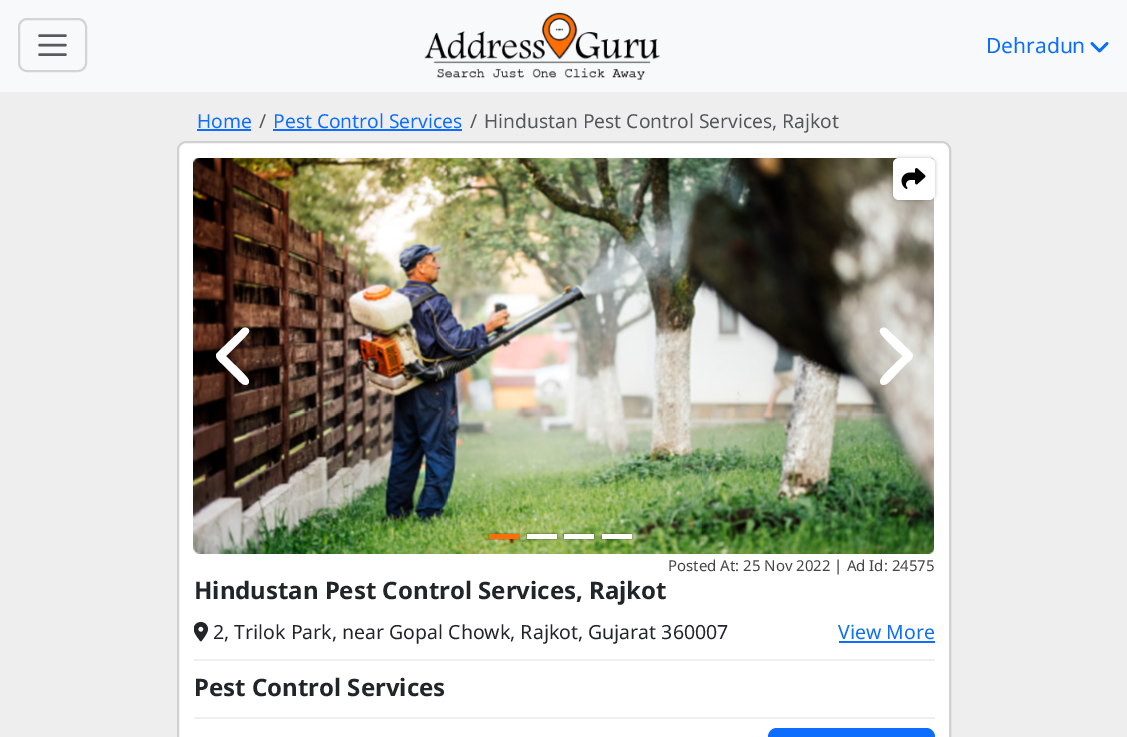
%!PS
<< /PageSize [1127 737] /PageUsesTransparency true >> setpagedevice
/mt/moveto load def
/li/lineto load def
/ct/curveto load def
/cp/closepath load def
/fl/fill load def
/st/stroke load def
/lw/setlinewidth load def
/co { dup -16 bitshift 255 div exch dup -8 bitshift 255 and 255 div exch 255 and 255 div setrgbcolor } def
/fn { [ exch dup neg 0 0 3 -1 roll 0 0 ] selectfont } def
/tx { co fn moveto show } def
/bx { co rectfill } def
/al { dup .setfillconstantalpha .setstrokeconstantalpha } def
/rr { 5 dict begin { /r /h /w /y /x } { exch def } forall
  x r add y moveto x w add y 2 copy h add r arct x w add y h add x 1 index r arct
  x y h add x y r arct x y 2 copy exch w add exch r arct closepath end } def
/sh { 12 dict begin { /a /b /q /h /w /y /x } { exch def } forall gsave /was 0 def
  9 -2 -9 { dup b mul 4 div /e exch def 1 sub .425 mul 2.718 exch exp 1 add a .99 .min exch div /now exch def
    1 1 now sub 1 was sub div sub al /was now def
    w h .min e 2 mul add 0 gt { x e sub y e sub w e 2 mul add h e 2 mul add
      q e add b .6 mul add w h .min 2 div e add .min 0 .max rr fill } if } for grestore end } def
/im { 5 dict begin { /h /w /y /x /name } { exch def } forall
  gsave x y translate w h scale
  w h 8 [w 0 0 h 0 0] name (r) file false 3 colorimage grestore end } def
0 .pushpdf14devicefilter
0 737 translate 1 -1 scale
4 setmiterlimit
0 0 1127 737 16#EEEEEE bx
0 0 1127 92 16#F8F9FA bx
16#D3D4D5 co
2 lw
19 19 67 52 8 rr st
16#575A5D co
2.4 lw
1 setlinecap
39.5 35.5 mt 65.5 35.5 li 39.5 45 mt 65.5 45 li 39.5 54.5 mt 65.5 54.5 li st
(media/1.raw) 424 12 236 68 im
(media/2.raw) 1090 42 19 11 im
197 129 54 2 16#0D6EFD bx
273 129 189 2 16#0D6EFD bx
16#FFFFFF co
177 141 774 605 9 rr fl
0.18 al
16#000000 co
2 lw
0 setlinecap
178 142 772 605 8 rr st
1 al
(media/4.raw) 193 158 741 396 im
893 158 42 42 6 2 .25 sh
16#FFFFFF co
893 158 42 42 6 rr fl
(media/3.raw) 901 168 25 21 im
217 353 mt 214 357 219 361 221 363 ct 238 380 li 240 382 244 387 248 384 ct 249 383 249 382 249 381 ct 249 377 229 360 226 356 ct 229 353 248 335 249 332 ct 250 328 245 326 242 329 ct cp fl
912 353 mt 915 357 910 361 907 363 ct 891 380 li 889 382 885 387 881 384 ct 880 383 880 382 880 381 ct 880 377 899 360 903 356 ct 899 353 880 335 880 332 ct 879 328 884 326 887 329 ct cp fl
16#000000 co
489 534 30 5 0 1 .5 sh
489 534 30 5 16#FF6E04 bx
16#000000 co
527 534 30 5 0 1 .5 sh
527 534 30 5 16#FFFFFF bx
16#000000 co
564 534 30 5 0 1 .5 sh
564 534 30 5 16#FFFFFF bx
16#000000 co
602 534 30 5 0 1 .5 sh
602 534 30 5 16#FFFFFF bx
(media/5.raw) 194 621 15 21 im
839 641 96 2 16#0D6EFD bx
194 659 741 2 16#EEEEEE bx
194 717 741 2 16#EEEEEE bx
16#0D6EFD co
768 728 167 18 9 rr fl
(Dehradun) 986 53 /NotoSans-Regular 21 16#0D6EFD tx
(Home) 197 128 /NotoSans-Regular 19.25 16#0D6EFD tx
(/) 259 128 /NotoSans-Regular 19.25 16#54575A tx
(Pest Control Services) 273 128 /NotoSans-Regular 19.25 16#0D6EFD tx
(/) 470 128 /NotoSans-Regular 19.25 16#54575A tx
(Hindustan Pest Control Services, Rajkot) 484 128 /NotoSans-Regular 19.25 16#54575A tx
(Posted At: 25 Nov 2022 | Ad Id: 24575) 668 571 /NotoSans-Regular 15 16#444444 tx
(Hindustan Pest Control Services, Rajkot) 194 599 /NotoSans-Bold 24 16#212529 tx
(2, Trilok Park, near Gopal Chowk, Rajkot, Gujarat 360007) 213 639 /NotoSans-Regular 19.5 16#212529 tx
(View More) 838 639 /NotoSans-Regular 19.5 16#0D6EFD tx
(Pest Control Services) 194 696 /NotoSans-Bold 24 16#212529 tx
.poppdf14devicefilter showpage
